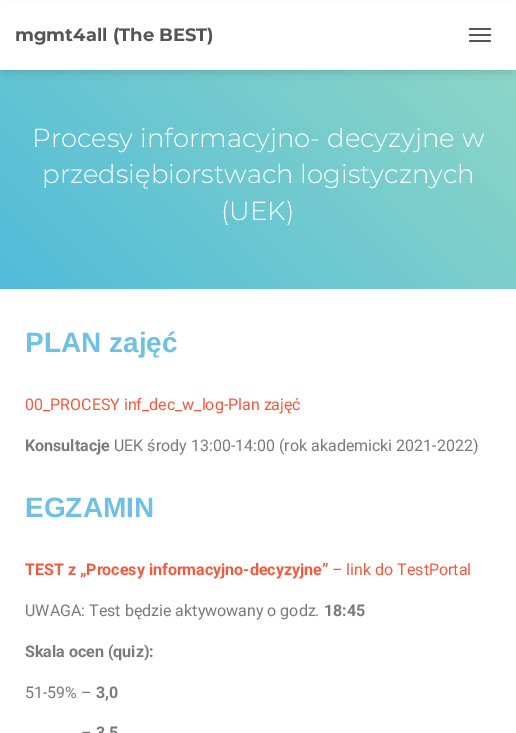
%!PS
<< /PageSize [516 733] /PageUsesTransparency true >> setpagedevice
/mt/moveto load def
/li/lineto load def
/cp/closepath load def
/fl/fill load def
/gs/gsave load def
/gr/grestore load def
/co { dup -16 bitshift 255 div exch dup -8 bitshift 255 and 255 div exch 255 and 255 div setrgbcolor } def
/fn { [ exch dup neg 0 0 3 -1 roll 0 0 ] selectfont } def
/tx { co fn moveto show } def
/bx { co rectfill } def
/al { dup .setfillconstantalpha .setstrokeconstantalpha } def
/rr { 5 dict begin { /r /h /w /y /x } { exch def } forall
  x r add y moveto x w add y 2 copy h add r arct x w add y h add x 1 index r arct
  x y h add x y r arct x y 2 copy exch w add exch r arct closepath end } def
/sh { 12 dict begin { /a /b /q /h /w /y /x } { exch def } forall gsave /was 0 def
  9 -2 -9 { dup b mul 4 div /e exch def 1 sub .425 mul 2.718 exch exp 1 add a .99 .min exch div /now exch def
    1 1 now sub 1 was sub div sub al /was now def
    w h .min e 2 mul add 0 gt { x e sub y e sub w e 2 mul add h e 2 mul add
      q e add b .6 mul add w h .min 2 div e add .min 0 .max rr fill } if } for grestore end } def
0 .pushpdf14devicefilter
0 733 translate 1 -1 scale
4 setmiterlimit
0 0 516 733 16#FFFFFF bx
gs 0 70 mt 516 70 li 516 289 li 0 289 li cp clip newpath
<< /ShadingType 2 /ColorSpace /DeviceRGB /Coords [57 346 459 -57] /Extend [true true] /Function << /FunctionType 2 /Domain [0 1] /C0 [.318 .737 .855] /C1 [.576 .847 .773] /N 1 >> >> shfill gr
16#000000 co
4 10 508 62 0 5 .15 sh
0 3 516 67 16#FFFFFF bx
16#555555 co
469 28 22 2 1 rr fl
469 34 22 2 1 rr fl
469 40 22 2 1 rr fl
(mgmt4all \(The BEST\)) 15 41 /Montserrat-Bold 18 16#555555 tx
(Procesy informacyjno- decyzyjne w) 32 147 /Montserrat-Light 26 16#FFFFFF tx
(przedsiębiorstwach logistycznych) 42 183 /Montserrat-Light 26 16#FFFFFF tx
(\(UEK\)) 221 220 /Montserrat-Light 26 16#FFFFFF tx
(PLAN zajęć) 25 352 /LiberationSans-Bold 28 16#6EC1E4 tx
(00_PROCESY inf_dec_w_log-Plan zajęć) 25 410 /Roboto-Regular 16 16#F5593D tx
(Konsultacje) 25 451 /Roboto-Bold 16 16#7A7A7A tx
(UEK środy 13:00-14:00 \(rok akademicki 2021-2022\)) 114 451 /Roboto-Regular 16 16#7A7A7A tx
(EGZAMIN) 25 517 /LiberationSans-Bold 28 16#6EC1E4 tx
(TEST z „Procesy informacyjno-decyzyjne”) 25 575 /Roboto-Bold 16 16#F5593D tx
(– link do TestPortal) 332 575 /Roboto-Regular 16 16#F5593D tx
(UWAGA: Test będzie aktywowany o godz.) 25 616 /Roboto-Regular 16 16#7A7A7A tx
(18:45) 324 616 /Roboto-Bold 16 16#7A7A7A tx
(Skala ocen \(quiz\):) 25 657 /Roboto-Bold 16 16#7A7A7A tx
(51-59% –) 25 698 /Roboto-Regular 16 16#7A7A7A tx
(3,0) 96 698 /Roboto-Bold 16 16#7A7A7A tx
(–) 81 738 /Roboto-Regular 16 16#7A7A7A tx
(3,5) 96 738 /Roboto-Bold 16 16#7A7A7A tx
.poppdf14devicefilter showpage
